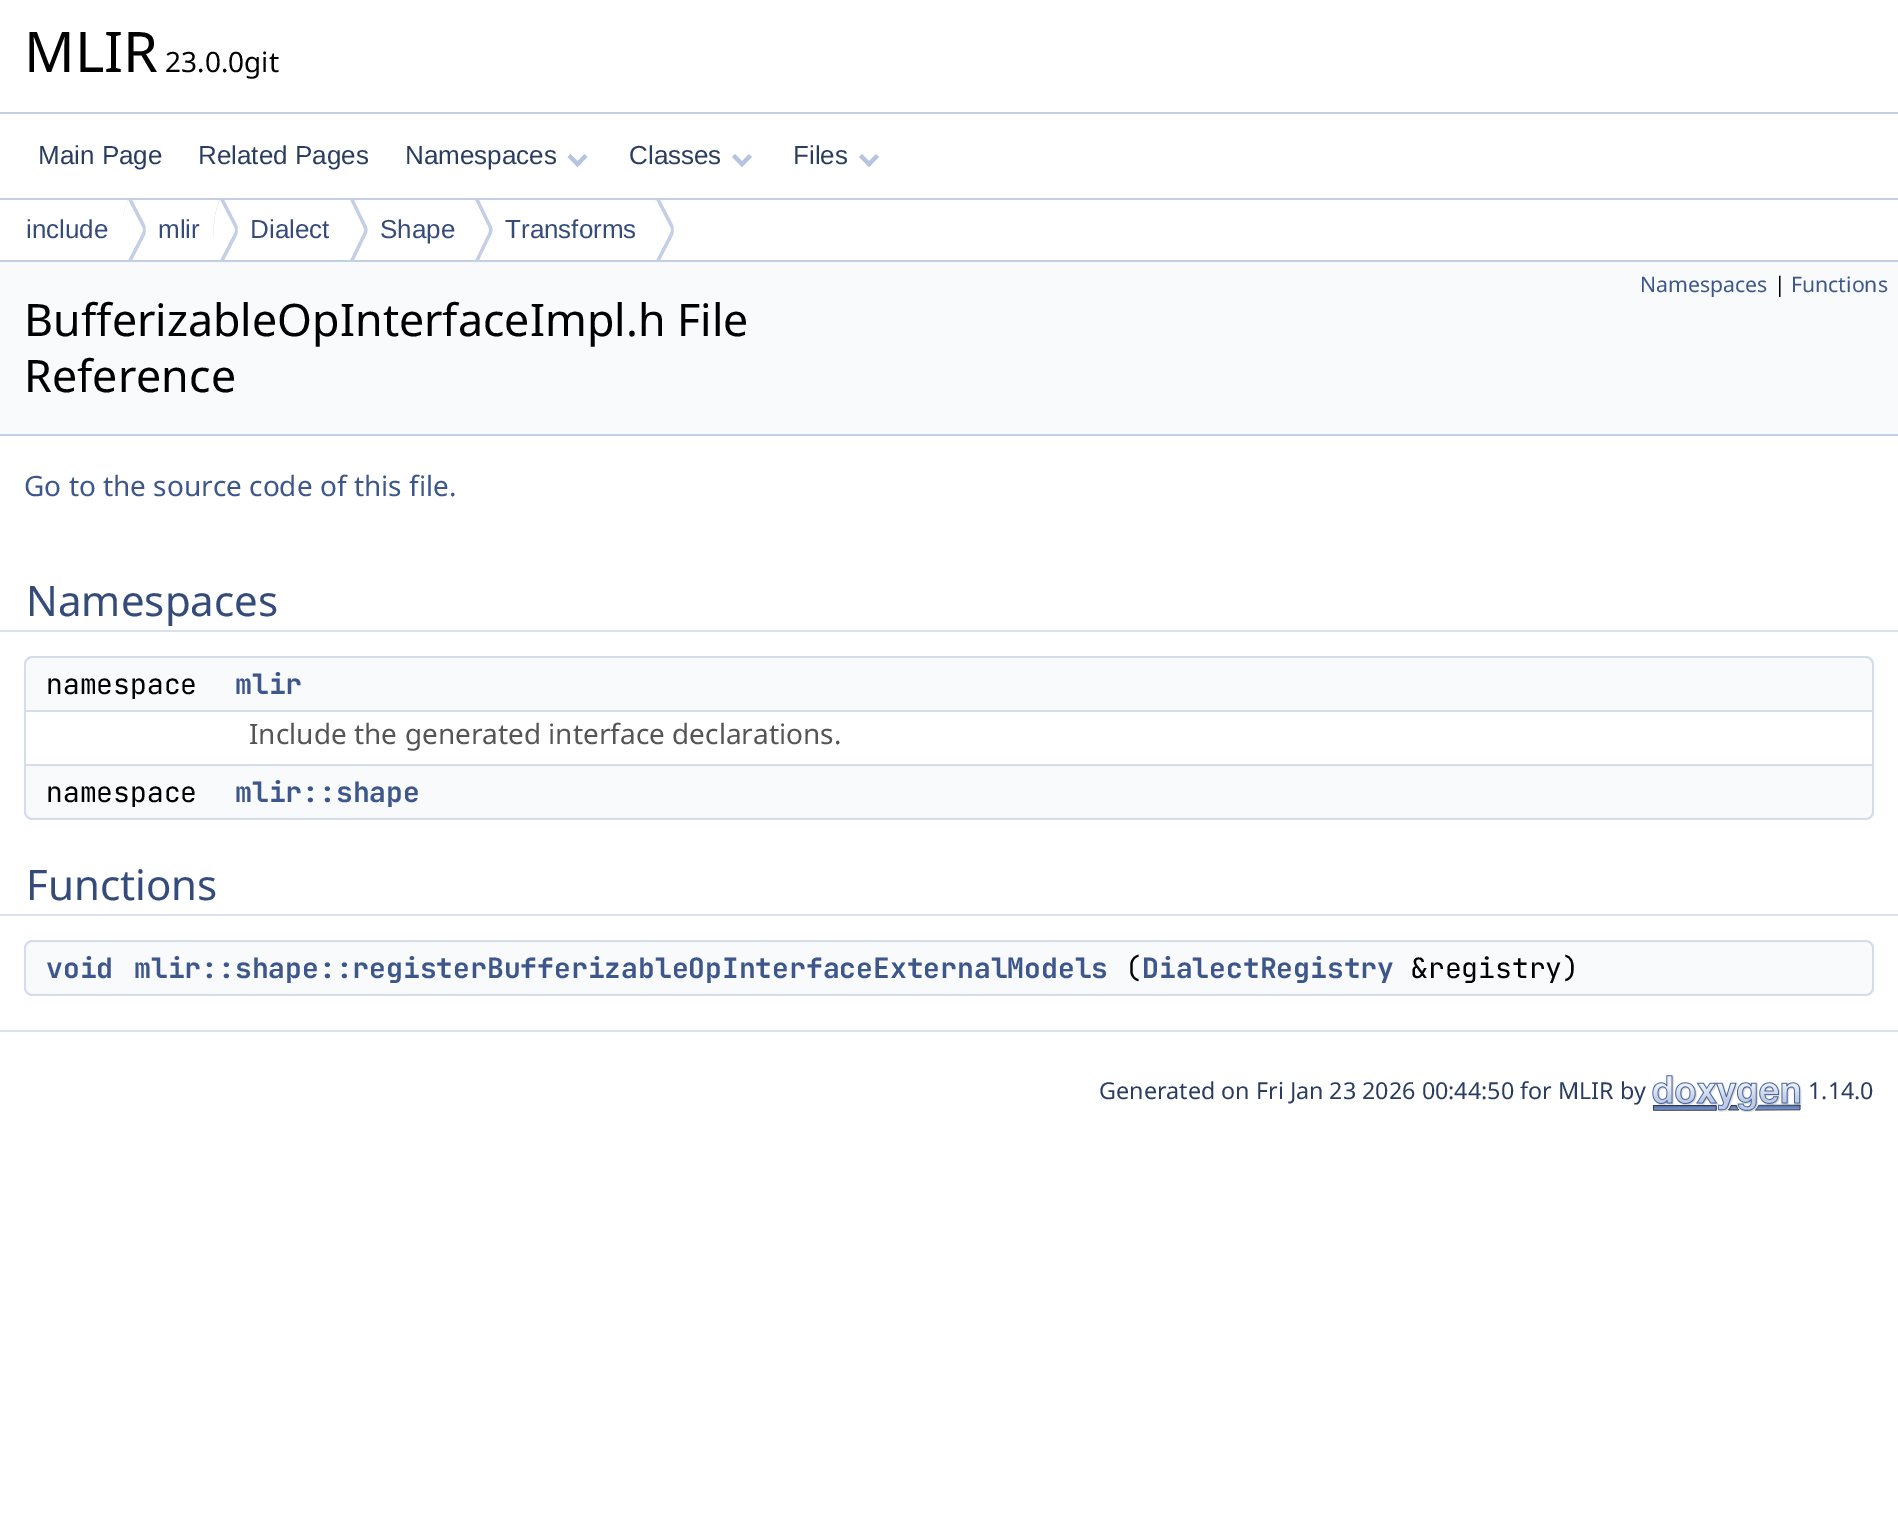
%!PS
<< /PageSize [1898 1539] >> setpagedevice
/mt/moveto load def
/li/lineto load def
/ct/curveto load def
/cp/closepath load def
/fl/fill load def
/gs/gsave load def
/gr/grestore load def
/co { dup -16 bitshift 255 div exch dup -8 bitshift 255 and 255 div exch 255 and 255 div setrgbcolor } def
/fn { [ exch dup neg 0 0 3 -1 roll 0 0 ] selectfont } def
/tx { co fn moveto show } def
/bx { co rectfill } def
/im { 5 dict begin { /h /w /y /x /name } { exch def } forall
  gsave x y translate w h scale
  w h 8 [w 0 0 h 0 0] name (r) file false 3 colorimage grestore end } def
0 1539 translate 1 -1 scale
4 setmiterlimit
0 0 1898 1539 16#FFFFFF bx
0 112 1898 2 16#C4CFE5 bx
0 198 1898 2 16#C4CFE5 bx
16#B6C4DF co
584.5 154 mt 587.5 157 li 577.5 167 li 575 164 li cp fl
570.5 154 mt 580.5 164 li 577.5 167 li 567.5 157 li cp fl
749 154 mt 752 157 li 742 167 li 739.5 164 li cp fl
735 154 mt 745 164 li 742 167 li 732 157 li cp fl
876 154 mt 879 157 li 869 167 li 866 164 li cp fl
862 154 mt 872 164 li 869 167 li 859 157 li cp fl
0 260 1898 2 16#C4CFE5 bx
gs
0 200 1898 60 rectclip
130 196 mt 126 204 123 212 123 222 ct 123 214 125 206 128 200 ct 142 227 li 143 229 143 231 142 233 ct 128 260 li 128 259 li 130 264 li 145 235 li 146 232 146 228 145 225 ct cp fl
gr
16#FFFFFF co
128 200 mt 142 227 li 143 229 143 231 142 233 ct 128 260 li 120 243 120 217 128 200 ct cp fl
gs
0 200 1898 60 rectclip
16#C4CFE5 co
222 196 mt 216 209 213 223 214 237 ct 213 224 215 210 220 200 ct 234 227 li 235 229 235 231 234 233 ct 220 260 li 219 258 li 222 264 li 237 235 li 238 232 238 228 237 225 ct cp fl
gr
220 200 mt 234 227 li 235 229 235 231 234 233 ct 220 260 li 212 243 212 217 220 200 ct cp fl
gs
0 200 1898 60 rectclip
16#C4CFE5 co
352 196 mt 350 200 li 363 227 li 364 229 364 231 363 233 ct 350 260 li 352 264 li 366 235 li 368 232 368 228 366 225 ct cp fl
gr
350 200 mt 363 227 li 364 229 364 231 363 233 ct 350 260 li 341 243 341 217 350 200 ct cp fl
gs
0 200 1898 60 rectclip
16#C4CFE5 co
477 196 mt 475 200 li 488 227 li 489 229 489 231 488 233 ct 475 260 li 477 264 li 491 235 li 493 232 493 228 491 225 ct cp fl
gr
475 200 mt 488 227 li 489 229 489 231 488 233 ct 475 260 li 467 243 467 217 475 200 ct cp fl
gs
0 200 1898 60 rectclip
16#C4CFE5 co
658 196 mt 655 204 li 656 200 li 670 227 li 671 229 671 231 670 233 ct 656 260 li 656 259 li 658 264 li 673 235 li 674 232 674 228 673 225 ct cp fl
gr
656 200 mt 670 227 li 671 229 671 231 670 233 ct 656 260 li 648 243 648 217 656 200 ct cp fl
0 262 1898 172 16#F9FAFC bx
0 434 1898 2 16#C4CFE5 bx
16#D9E0EE co
0 564 mt 0 632 li 1846 632 li 1846 630 li 26 630 li 26 564 li cp fl
52 630 mt 52 632 li 1898 632 li 1898 564 li 1872 564 li 1872 630 li cp fl
0 564 26 66 16#FFFFFF bx
1872 564 26 66 16#FFFFFF bx
16#F9FAFC co
32 656 mt 232 656 li 232 712 li 24 712 li 24 664 li 24 659.5 27.5 656 32 656 ct cp fl
16#D5DDEC co
32 656 mt 232 656 li 232 712 li 24 712 li 24 664 li 24 660 28 656 32 656 ct cp 32 658 mt 232 658 li 232 710 li 26 710 li 26 664 li 26 661 29 658 32 658 ct cp eofill
16#F9FAFC co
232 656 mt 1866 656 li 1870.5 656 1874 659.5 1874 664 ct 1874 712 li 232 712 li cp fl
16#D5DDEC co
232 656 mt 1866 656 li 1870 656 1874 660 1874 664 ct 1874 712 li 232 712 li cp 232 658 mt 1866 658 li 1869 658 1872 661 1872 664 ct 1872 710 li 232 710 li cp eofill
24 764 208 2 16#D5DDEC bx
24 712 2 54 16#D5DDEC bx
1872 712 2 54 16#D5DDEC bx
232 764 1642 2 16#D5DDEC bx
16#F9FAFC co
24 766 mt 232 766 li 232 820 li 32 820 li 27.5 820 24 816.5 24 812 ct cp fl
16#D5DDEC co
24 766 mt 232 766 li 232 820 li 32 820 li 28 820 24 816 24 812 ct cp 26 766 mt 232 766 li 232 818 li 32 818 li 29 818 26 815 26 812 ct cp eofill
16#F9FAFC co
232 766 mt 1874 766 li 1874 812 li 1874 816.5 1870.5 820 1866 820 ct 232 820 li cp fl
16#D5DDEC co
232 766 mt 1874 766 li 1874 812 li 1874 816 1870 820 1866 820 ct 232 820 li cp 232 766 mt 1872 766 li 1872 812 li 1872 815 1869 818 1866 818 ct 232 818 li cp eofill
16#D9E0EE co
0 848 mt 0 916 li 1846 916 li 1846 914 li 26 914 li 26 848 li cp fl
52 914 mt 52 916 li 1898 916 li 1898 848 li 1872 848 li 1872 914 li cp fl
0 848 26 66 16#FFFFFF bx
1872 848 26 66 16#FFFFFF bx
16#F9FAFC co
32 940 mt 132 940 li 132 996 li 32 996 li 27.5 996 24 992.5 24 988 ct 24 948 li 24 943.5 27.5 940 32 940 ct cp fl
16#D5DDEC co
32 940 mt 132 940 li 132 996 li 32 996 li 28 996 24 992 24 988 ct 24 948 li 24 944 28 940 32 940 ct cp 32 942 mt 132 942 li 132 994 li 32 994 li 29 994 26 991 26 988 ct 26 948 li 26 945 29 942 32 942 ct cp eofill
16#F9FAFC co
132 940 mt 1866 940 li 1870.5 940 1874 943.5 1874 948 ct 1874 988 li 1874 992.5 1870.5 996 1866 996 ct 132 996 li cp fl
16#D5DDEC co
132 940 mt 1866 940 li 1870 940 1874 944 1874 948 ct 1874 988 li 1874 992 1870 996 1866 996 ct 132 996 li cp 132 942 mt 1866 942 li 1869 942 1872 945 1872 948 ct 1872 988 li 1872 991 1869 994 1866 994 ct 132 994 li cp eofill
0 1030 1898 2 16#D9E0EE bx
(media/1.raw) 1652 1075 150 38 im
(MLIR) 24 72 /NotoSans-Regular 56 16#000000 tx
(23.0.0git) 165 72 /NotoSans-Regular 28 16#000000 tx
(Main Page) 38 164 /LiberationSans-Regular 26 16#2A3D61 tx
(Related Pages) 198 164 /LiberationSans-Regular 26 16#2A3D61 tx
(Namespaces) 405 164 /LiberationSans-Regular 26 16#2A3D61 tx
(Classes) 629 164 /LiberationSans-Regular 26 16#2A3D61 tx
(Files) 793 164 /LiberationSans-Regular 26 16#2A3D61 tx
(include) 26 238 /LiberationSans-Regular 26 16#354C7B tx
(mlir) 158 238 /LiberationSans-Regular 26 16#354C7B tx
(Dialect) 250 238 /LiberationSans-Regular 26 16#354C7B tx
(Shape) 380 238 /LiberationSans-Regular 26 16#354C7B tx
(Transforms) 505 238 /LiberationSans-Regular 26 16#354C7B tx
(Namespaces) 1640 292 /NotoSans-Regular 21.25 16#3D578C tx
(|) 1774 292 /NotoSans-Regular 21.25 16#000000 tx
(Functions) 1791 292 /NotoSans-Regular 21.25 16#3D578C tx
(BufferizableOpInterfaceImpl.h File) 24 336 /NotoSans-Regular 44.75 16#000000 tx
(Reference) 24 392 /NotoSans-Regular 44.75 16#000000 tx
(Go to the source code of this file.) 24 496 /NotoSans-Regular 28 16#3D578C tx
(Namespaces) 26 616 /NotoSans-Regular 42 16#354C7B tx
(namespace) 46 694 /JetBrainsMono-Regular 28 16#000000 tx
(mlir) 235 694 /JetBrainsMono-Bold 28 16#3D578C tx
(Include the generated interface declarations.) 249 744 /NotoSans-Regular 28 16#555555 tx
(namespace) 46 802 /JetBrainsMono-Regular 28 16#000000 tx
(mlir::shape) 235 802 /JetBrainsMono-Bold 28 16#3D578C tx
(Functions) 26 900 /NotoSans-Regular 42 16#354C7B tx
(void) 46 978 /JetBrainsMono-Bold 28 16#3D578C tx
(mlir::shape::registerBufferizableOpInterfaceExternalModels) 134 978 /JetBrainsMono-Bold 28 16#3D578C tx
(\() 1125 978 /JetBrainsMono-Regular 28 16#000000 tx
(DialectRegistry) 1142 978 /JetBrainsMono-Bold 28 16#3D578C tx
(&registry\)) 1411 978 /JetBrainsMono-Regular 28 16#000000 tx
(Generated on Fri Jan 23 2026 00:44:50 for MLIR by) 1099 1099 /NotoSans-Regular 23.3 16#2A3D61 tx
(1.14.0) 1808 1099 /NotoSans-Regular 23.3 16#2A3D61 tx
showpage
